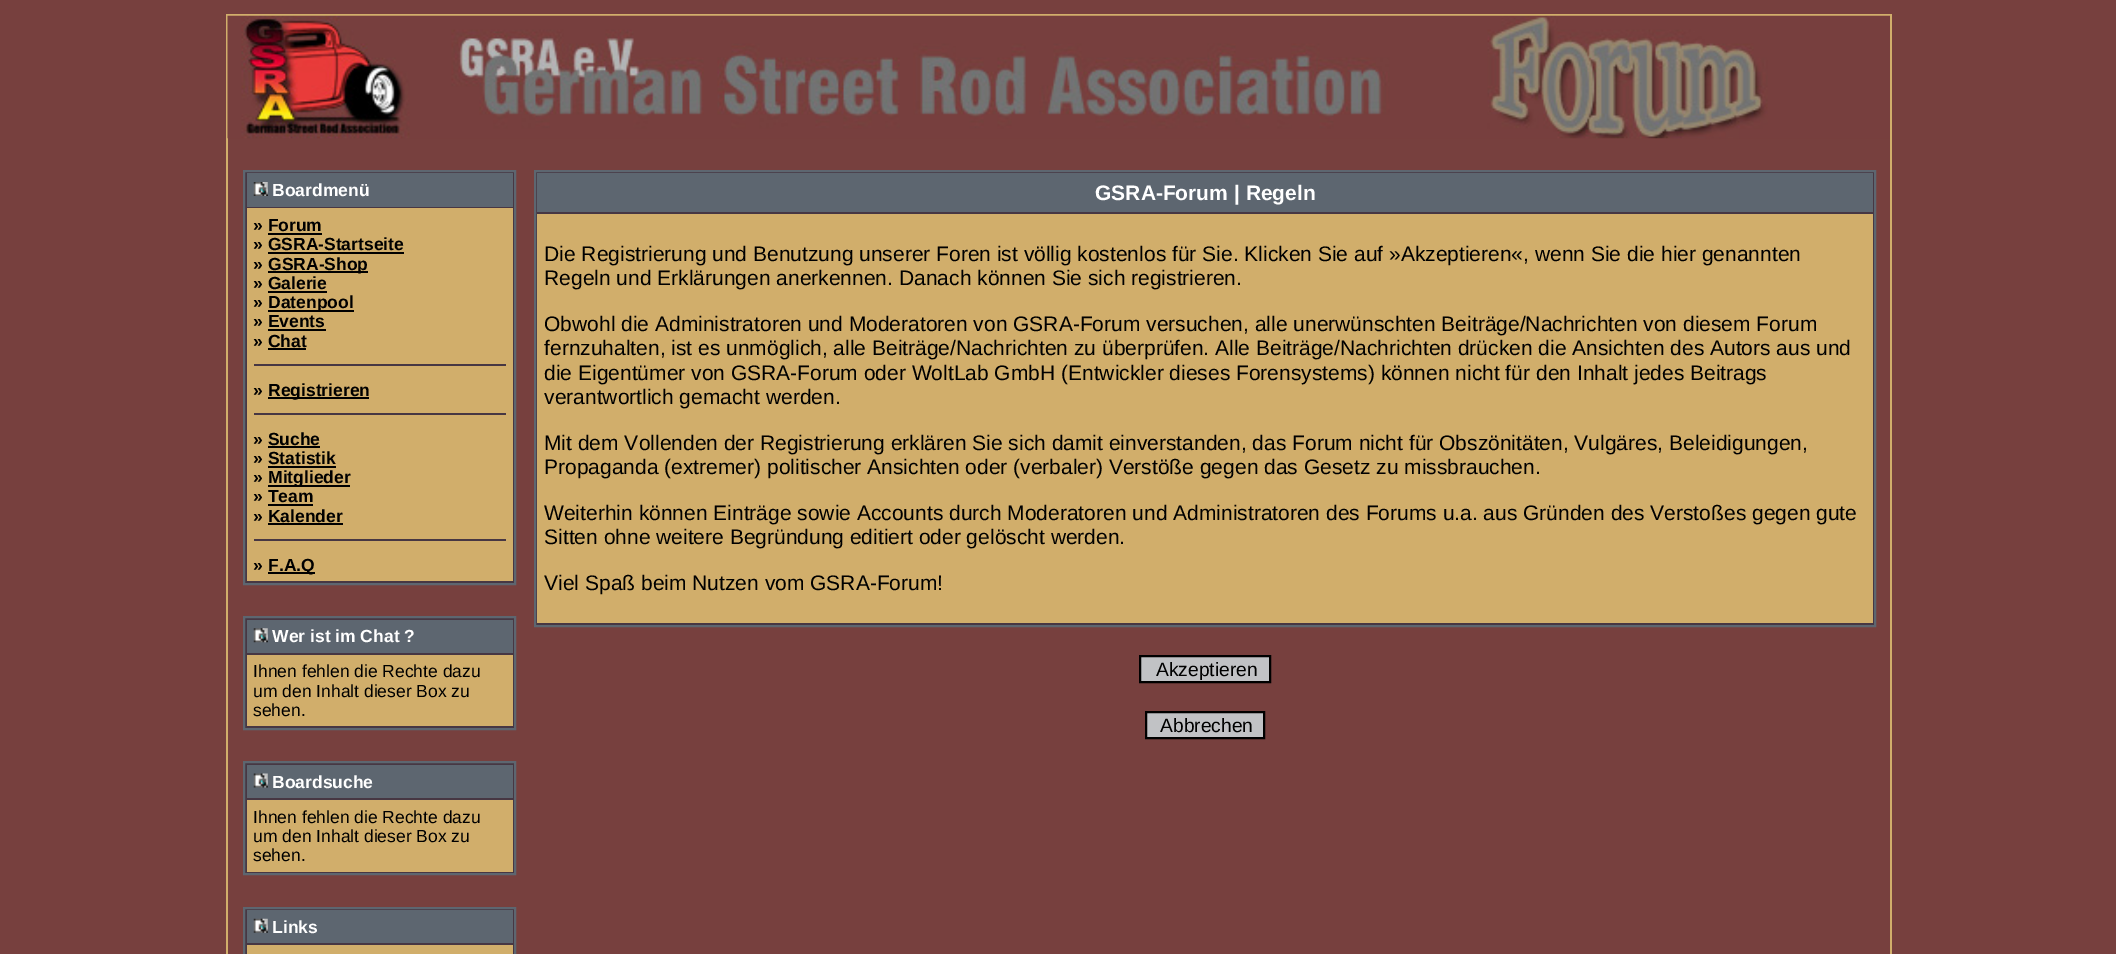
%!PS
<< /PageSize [2116 954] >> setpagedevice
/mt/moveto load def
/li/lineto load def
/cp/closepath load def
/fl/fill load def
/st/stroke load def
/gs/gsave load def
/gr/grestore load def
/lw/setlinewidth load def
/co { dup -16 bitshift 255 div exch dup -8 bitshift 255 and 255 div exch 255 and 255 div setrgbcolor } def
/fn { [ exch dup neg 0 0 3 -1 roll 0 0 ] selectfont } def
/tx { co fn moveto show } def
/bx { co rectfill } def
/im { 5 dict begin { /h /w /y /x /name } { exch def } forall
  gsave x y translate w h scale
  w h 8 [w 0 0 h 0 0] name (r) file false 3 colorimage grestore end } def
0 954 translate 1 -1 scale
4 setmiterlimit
0 0 2116 954 16#77403E bx
226 14 1666 940 16#D1AE6B bx
228 138 1662 816 16#77403E bx
(media/1.raw) 227 15 1663 124 im
16#473743 co
244 171 mt 515 171 li 515 584 li 244 584 li cp gs fl gr
16#5D6670 co
2 lw
st
247 173 266 34 16#5D6670 bx
(media/2.raw) 253 182 15 14 im
247 208 266 373 16#D1AE6B bx
268 233 54 2 16#000000 bx
268 252 136 2 16#000000 bx
268 271 100 2 16#000000 bx
268 291 59 2 16#000000 bx
268 310 86 2 16#000000 bx
268 329 58 2 16#000000 bx
268 348 38 2 16#000000 bx
254 364 252 2 16#473743 bx
268 397 101 2 16#000000 bx
254 413 252 2 16#473743 bx
268 446 52 2 16#000000 bx
268 466 68 2 16#000000 bx
268 485 82 2 16#000000 bx
268 504 45 2 16#000000 bx
268 523 75 2 16#000000 bx
254 539 252 2 16#473743 bx
268 572 47 2 16#000000 bx
16#473743 co
244 617 mt 515 617 li 515 729 li 244 729 li cp gs fl gr
16#5D6670 co
st
247 620 266 33 16#5D6670 bx
(media/3.raw) 253 628 15 15 im
247 655 266 71 16#D1AE6B bx
16#473743 co
244 762 mt 515 762 li 515 874 li 244 874 li cp gs fl gr
16#5D6670 co
st
247 765 266 33 16#5D6670 bx
(media/4.raw) 253 773 15 15 im
247 800 266 72 16#D1AE6B bx
16#473743 co
244 908 mt 515 908 li 515 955 li 244 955 li cp gs fl gr
16#5D6670 co
st
247 910 266 33 16#5D6670 bx
(media/5.raw) 253 918 15 15 im
247 945 266 9 16#D1AE6B bx
16#473743 co
535 171 mt 1875 171 li 1875 626 li 535 626 li cp gs fl gr
16#5D6670 co
st
537 173 1336 39 16#5D6670 bx
537 214 1336 409 16#D1AE6B bx
16#C1C2C5 co
1140 656 mt 1270 656 li 1270 682 li 1140 682 li cp gs fl gr
16#000000 co
st
16#C1C2C5 co
1146 712 mt 1264 712 li 1264 738 li 1146 738 li cp gs fl gr
16#000000 co
st
(Boardmenü) 272 196 /LiberationSans-Bold 17.5 16#FFFFFF tx
(» Forum) 253 231 /LiberationSans-Bold 17.5 16#000000 tx
(» GSRA-Startseite) 253 250 /LiberationSans-Bold 17.5 16#000000 tx
(») 253 270 /LiberationSans-Bold 17.5 16#000000 tx
(GSRA-Shop) 268 270 /LiberationSans-Bold 17.5 16#000000 tx
(» Galerie) 253 289 /LiberationSans-Bold 17.5 16#000000 tx
(») 253 308 /LiberationSans-Bold 17.5 16#000000 tx
(Datenpool) 268 308 /LiberationSans-Bold 17.5 16#000000 tx
(» Events) 253 327 /LiberationSans-Bold 17.5 16#000000 tx
(» Chat) 253 347 /LiberationSans-Bold 17.5 16#000000 tx
(») 253 396 /LiberationSans-Bold 17.5 16#000000 tx
(Registrieren) 268 396 /LiberationSans-Bold 17.5 16#000000 tx
(» Suche) 253 445 /LiberationSans-Bold 17.5 16#000000 tx
(» Statistik) 253 464 /LiberationSans-Bold 17.5 16#000000 tx
(») 253 483 /LiberationSans-Bold 17.5 16#000000 tx
(Mitglieder) 268 483 /LiberationSans-Bold 17.5 16#000000 tx
(» Team) 253 502 /LiberationSans-Bold 17.5 16#000000 tx
(» Kalender) 253 522 /LiberationSans-Bold 17.5 16#000000 tx
(») 253 571 /LiberationSans-Bold 17.5 16#000000 tx
(F.A.Q) 268 571 /LiberationSans-Bold 17.5 16#000000 tx
(Wer ist im Chat ?) 272 642 /LiberationSans-Bold 17.5 16#FFFFFF tx
(Ihnen fehlen die Rechte dazu) 253 677 /LiberationSans-Regular 17.5 16#000000 tx
(um den Inhalt dieser Box zu) 253 697 /LiberationSans-Regular 17.5 16#000000 tx
(sehen.) 253 716 /LiberationSans-Regular 17.5 16#000000 tx
(Boardsuche) 272 788 /LiberationSans-Bold 17.5 16#FFFFFF tx
(Ihnen fehlen die Rechte dazu) 253 823 /LiberationSans-Regular 17.5 16#000000 tx
(um den Inhalt dieser Box zu) 253 842 /LiberationSans-Regular 17.5 16#000000 tx
(sehen.) 253 861 /LiberationSans-Regular 17.5 16#000000 tx
(Links) 272 933 /LiberationSans-Bold 17.5 16#FFFFFF tx
(GSRA-Forum | Regeln) 1095 200 /LiberationSans-Bold 21 16#FFFFFF tx
(Die Registrierung und Benutzung unserer Foren ist völlig kostenlos für Sie. Klicken Sie auf »Akzeptieren«, wenn Sie die hier genannten) 544 261 /LiberationSans-Regular 21 16#000000 tx
(Regeln und Erklärungen anerkennen. Danach können Sie sich registrieren.) 544 285 /LiberationSans-Regular 21 16#000000 tx
(Obwohl die Administratoren und Moderatoren von GSRA-Forum versuchen, alle unerwünschten Beiträge/Nachrichten von diesem Forum) 544 331 /LiberationSans-Regular 21 16#000000 tx
(fernzuhalten, ist es unmöglich, alle Beiträge/Nachrichten zu überprüfen. Alle Beiträge/Nachrichten drücken die Ansichten des Autors aus und) 544 355 /LiberationSans-Regular 21 16#000000 tx
(die Eigentümer von GSRA-Forum oder WoltLab GmbH \(Entwickler dieses Forensystems\) können nicht für den Inhalt jedes Beitrags) 544 380 /LiberationSans-Regular 21 16#000000 tx
(verantwortlich gemacht werden.) 544 404 /LiberationSans-Regular 21 16#000000 tx
(Mit dem Vollenden der Registrierung erklären Sie sich damit einverstanden, das Forum nicht für Obszönitäten, Vulgäres, Beleidigungen,) 544 450 /LiberationSans-Regular 21 16#000000 tx
(Propaganda \(extremer\) politischer Ansichten oder \(verbaler\) Verstöße gegen das Gesetz zu missbrauchen.) 544 474 /LiberationSans-Regular 21 16#000000 tx
(Weiterhin können Einträge sowie Accounts durch Moderatoren und Administratoren des Forums u.a. aus Gründen des Verstoßes gegen gute) 544 520 /LiberationSans-Regular 21 16#000000 tx
(Sitten ohne weitere Begründung editiert oder gelöscht werden.) 544 544 /LiberationSans-Regular 21 16#000000 tx
(Viel Spaß beim Nutzen vom GSRA-Forum!) 544 590 /LiberationSans-Regular 21 16#000000 tx
(Akzeptieren) 1156 676 /LiberationSans-Regular 19.25 16#000000 tx
(Abbrechen) 1160 732 /LiberationSans-Regular 19.25 16#000000 tx
showpage
